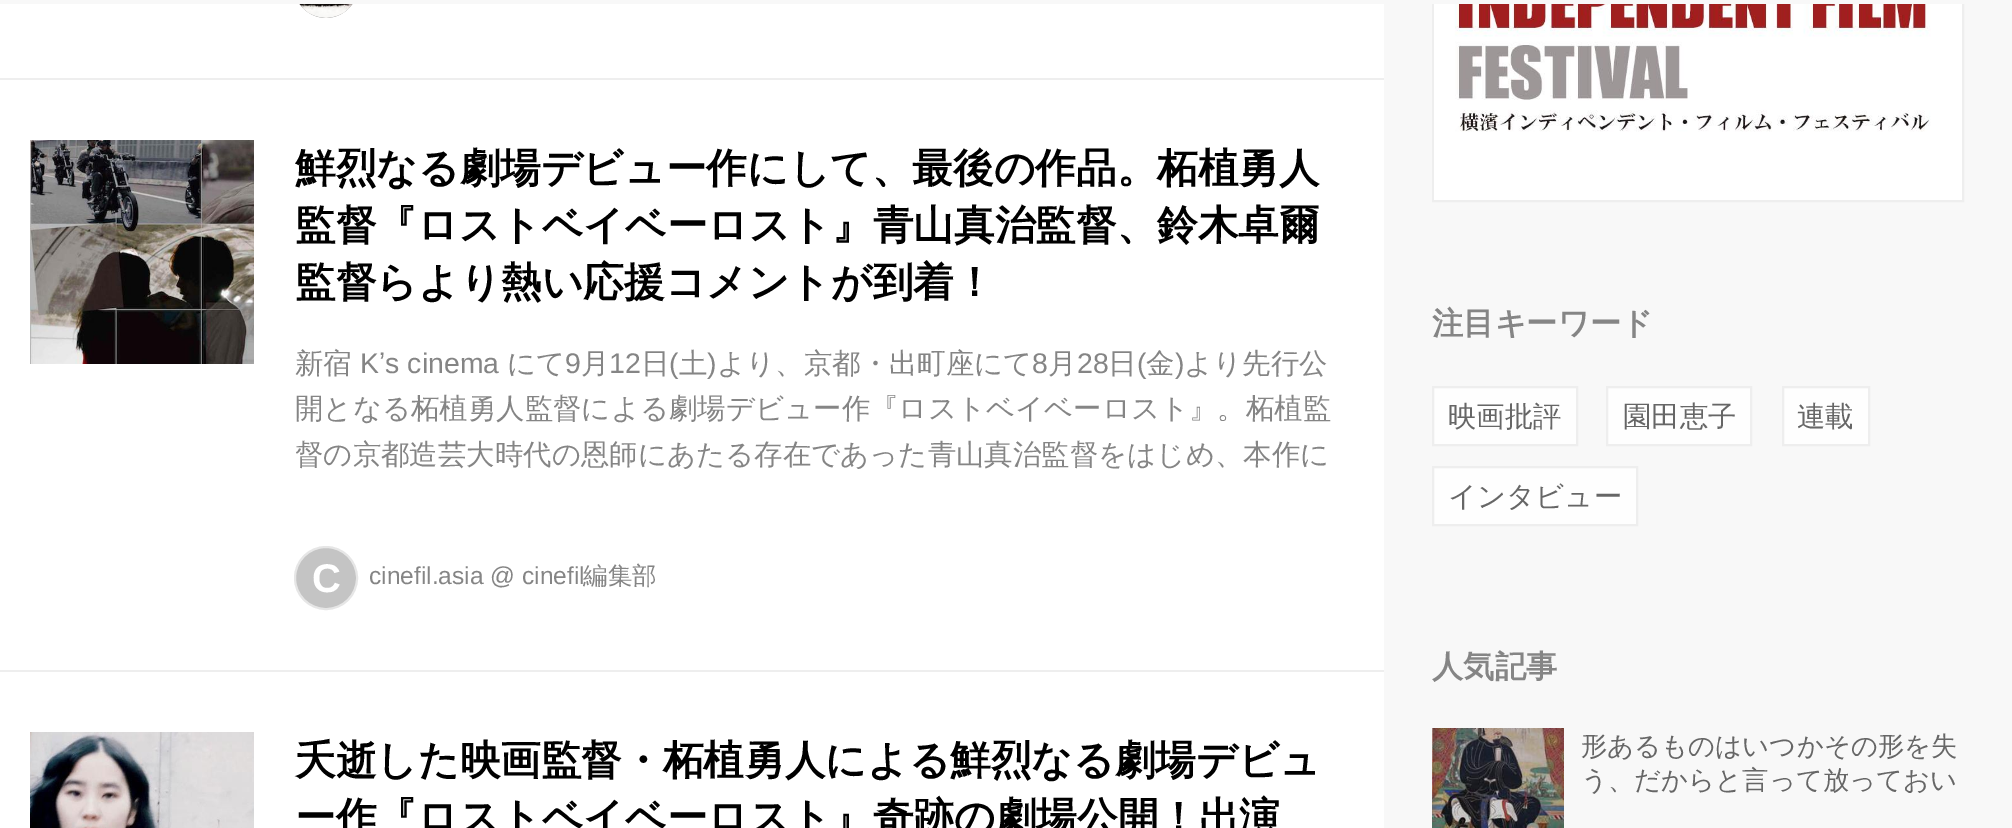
%!PS
<< /PageSize [2012 828] >> setpagedevice
/mt/moveto load def
/li/lineto load def
/cp/closepath load def
/fl/fill load def
/st/stroke load def
/gs/gsave load def
/gr/grestore load def
/lw/setlinewidth load def
/co { dup -16 bitshift 255 div exch dup -8 bitshift 255 and 255 div exch 255 and 255 div setrgbcolor } def
/fn { [ exch dup neg 0 0 3 -1 roll 0 0 ] selectfont } def
/tx { co fn moveto show } def
/bx { co rectfill } def
/ci { newpath 0 360 arc closepath } def
/rr { 5 dict begin { /r /h /w /y /x } { exch def } forall
  x r add y moveto x w add y 2 copy h add r arct x w add y h add x 1 index r arct
  x y h add x y r arct x y 2 copy exch w add exch r arct closepath end } def
/im { 5 dict begin { /h /w /y /x /name } { exch def } forall
  gsave x y translate w h scale
  w h 8 [w 0 0 h 0 0] name (r) file false 3 colorimage grestore end } def
0 828 translate 1 -1 scale
4 setmiterlimit
0 0 2012 828 16#FFFFFF bx
16#888888 co
294 -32 64 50 32 rr fl
1384 4 628 824 16#F8F8F8 bx
16#EEEEEE co
2 lw
1433 -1 530 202 rectstroke
0 0 2012 4 16#F8F8F8 bx
(media/1.raw) 299 4 54 14 im
0 78 1384 2 16#EEEEEE bx
(media/2.raw) 30 140 224 224 im
16#C4C4C4 co
326 578 31 ci gs fl gr
16#E6E6E6 co
st
0 670 1384 2 16#EEEEEE bx
(media/3.raw) 30 732 224 96 im
(media/4.raw) 1434 4 528 196 im
16#FEFEFE co
1433 387 mt 1577 387 li 1577 445 li 1433 445 li cp gs fl gr
16#EEEEEE co
st
16#FEFEFE co
1607 387 mt 1751 387 li 1751 445 li 1607 445 li cp gs fl gr
16#EEEEEE co
st
16#FEFEFE co
1783 387 mt 1869 387 li 1869 445 li 1783 445 li cp gs fl gr
16#EEEEEE co
st
16#FEFEFE co
1433 467 mt 1637 467 li 1637 525 li 1433 525 li cp gs fl gr
16#EEEEEE co
st
(media/5.raw) 1432 728 132 100 im
(鮮烈なる劇場デビュー作にして、最後の作品。柘植勇人) 295 182 /WenQuanYiZenHei-Bold 40.65 16#000000 tx
(監督『ロストベイベーロスト』⻘山真治監督、鈴木卓爾) 295 239 /WenQuanYiZenHei-Bold 40.65 16#000000 tx
(監督らより熱い応援コメントが到着！) 295 296 /WenQuanYiZenHei-Bold 40.65 16#000000 tx
(新宿) 295 373 /WenQuanYiZenHei-Medium 28.45 16#858585 tx
(Kʼs cinema) 360 373 /LiberationSans-Regular 28.45 16#858585 tx
(にて) 507 373 /WenQuanYiZenHei-Medium 28.45 16#858585 tx
(9) 565 373 /LiberationSans-Regular 28.45 16#858585 tx
(月) 581 373 /WenQuanYiZenHei-Medium 28.45 16#858585 tx
(12) 609 373 /LiberationSans-Regular 28.45 16#858585 tx
(日) 641 373 /WenQuanYiZenHei-Medium 28.45 16#858585 tx
(\() 669 373 /LiberationSans-Regular 28.45 16#858585 tx
(土) 679 373 /WenQuanYiZenHei-Medium 28.45 16#858585 tx
(\)) 707 373 /LiberationSans-Regular 28.45 16#858585 tx
(より、京都・出町座にて) 717 373 /WenQuanYiZenHei-Medium 28.45 16#858585 tx
(8) 1032 373 /LiberationSans-Regular 28.45 16#858585 tx
(月) 1048 373 /WenQuanYiZenHei-Medium 28.45 16#858585 tx
(28) 1077 373 /LiberationSans-Regular 28.45 16#858585 tx
(日) 1108 373 /WenQuanYiZenHei-Medium 28.45 16#858585 tx
(\() 1137 373 /LiberationSans-Regular 28.45 16#858585 tx
(金) 1146 373 /WenQuanYiZenHei-Medium 28.45 16#858585 tx
(\)) 1175 373 /LiberationSans-Regular 28.45 16#858585 tx
(より先行公) 1184 373 /WenQuanYiZenHei-Medium 28.45 16#858585 tx
(開となる柘植勇人監督による劇場デビュー作『ロストベイベーロスト』。柘植監) 295 418 /WenQuanYiZenHei-Medium 28.45 16#858585 tx
(督の京都造芸大時代の恩師にあたる存在であった⻘山真治監督をはじめ、本作に) 295 464 /WenQuanYiZenHei-Medium 28.45 16#858585 tx
(C) 312 592 /LiberationSans-Bold 40 16#FFFFFF tx
(cinefil.asia @ cinefil) 369 584 /LiberationSans-Regular 24.5 16#858585 tx
(編集部) 583 584 /WenQuanYiZenHei-Medium 24.5 16#858585 tx
(夭逝した映画監督・柘植勇人による鮮烈なる劇場デビュ) 295 774 /WenQuanYiZenHei-Bold 40.65 16#000000 tx
(ー作『ロストベイベーロスト』奇跡の劇場公開！出演) 295 831 /WenQuanYiZenHei-Bold 40.65 16#000000 tx
(注目キーワード) 1432 334 /WenQuanYiZenHei-Bold 31.25 16#858585 tx
(映画批評) 1448 426 /WenQuanYiZenHei-Medium 28.45 16#666666 tx
(園田恵子) 1623 426 /WenQuanYiZenHei-Medium 28.45 16#666666 tx
(連載) 1797 426 /WenQuanYiZenHei-Medium 28.45 16#666666 tx
(インタビュー) 1448 506 /WenQuanYiZenHei-Medium 28.45 16#666666 tx
(人気記事) 1432 677 /WenQuanYiZenHei-Bold 31.25 16#858585 tx
(形あるものはいつかその形を失) 1581 755 /WenQuanYiZenHei-Medium 26.4 16#666666 tx
(う、だからと言って放っておい) 1581 789 /WenQuanYiZenHei-Medium 26.4 16#666666 tx
showpage
